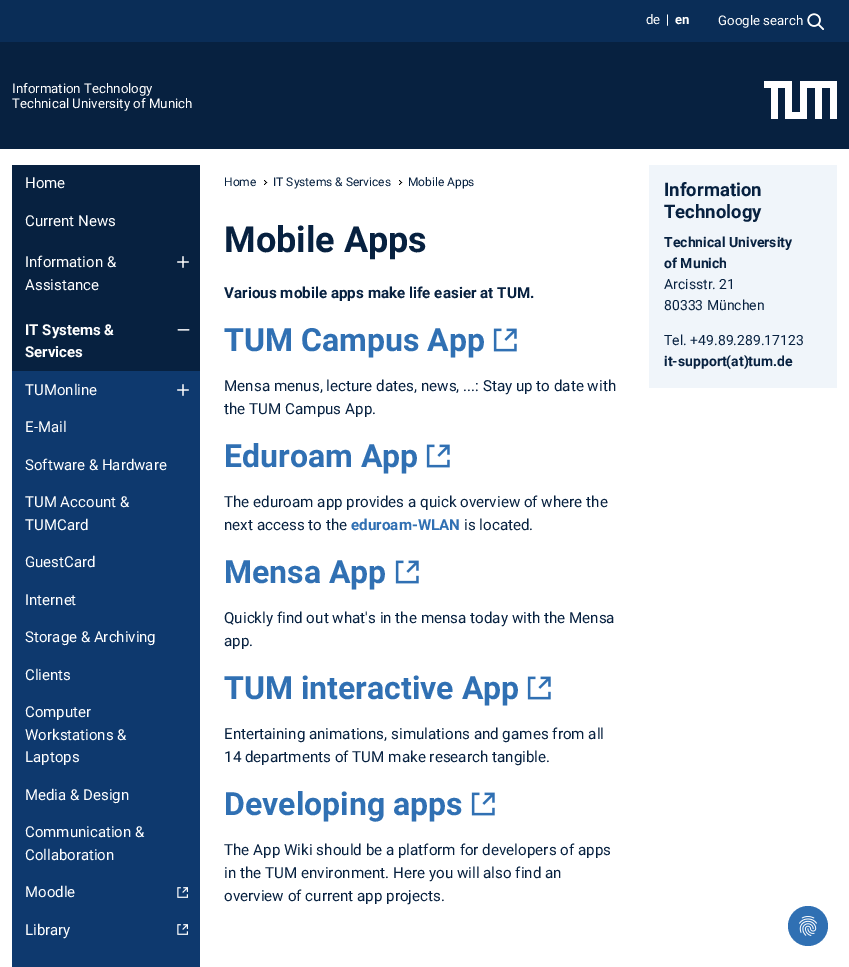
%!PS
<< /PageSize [849 967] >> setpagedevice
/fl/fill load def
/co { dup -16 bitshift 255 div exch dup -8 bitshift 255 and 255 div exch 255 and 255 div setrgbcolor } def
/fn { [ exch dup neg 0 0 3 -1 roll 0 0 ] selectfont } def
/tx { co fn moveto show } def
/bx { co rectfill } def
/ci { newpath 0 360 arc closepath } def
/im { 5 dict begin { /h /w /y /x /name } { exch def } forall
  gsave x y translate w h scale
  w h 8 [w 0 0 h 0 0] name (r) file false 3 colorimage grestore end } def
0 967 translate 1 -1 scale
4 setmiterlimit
0 0 849 967 16#FFFFFF bx
0 0 849 42 16#0A2D57 bx
(media/1.raw) 807 13 17 17 im
0 42 849 107 16#072140 bx
(media/2.raw) 764 81 73 38 im
12 165 188 206 16#072140 bx
(media/3.raw) 177 256 12 12 im
(media/4.raw) 177 329 13 2 im
12 371 188 596 16#0E396E bx
(media/5.raw) 177 384 12 12 im
(media/6.raw) 177 887 11 11 im
(media/6.raw) 177 924 11 11 im
(media/7.raw) 264 180 4 5 im
(media/7.raw) 399 180 4 5 im
(media/8.raw) 493 328 24 24 im
(media/8.raw) 426 444 24 24 im
(media/8.raw) 395 560 24 24 im
(media/8.raw) 527 676 24 24 im
(media/8.raw) 471 792 24 24 im
649 165 188 223 16#F0F5FA bx
16#3070B3 co
808 926 20 ci fl
(media/9.raw) 799 916 18 20 im
(de) 646 24 /Roboto-Regular 13.25 16#FFFFFF tx
(|) 666 24 /Roboto-Regular 13.25 16#FFFFFF tx
(en) 675 24 /Roboto-Bold 13.25 16#FFFFFF tx
(Google search) 718 25 /Roboto-Regular 13.25 16#FFFFFF tx
(Information Technology) 12 93 /Roboto-Regular 13.25 16#FFFFFF tx
(Technical University of Munich) 12 108 /Roboto-Regular 13.25 16#FFFFFF tx
(Home) 25 188 /Roboto-Regular 15 16#FFFFFF tx
(Current News) 25 226 /Roboto-Regular 15 16#FFFFFF tx
(Information &) 25 267 /Roboto-Regular 15 16#FFFFFF tx
(Assistance) 25 290 /Roboto-Regular 15 16#FFFFFF tx
(IT Systems &) 25 335 /Roboto-Bold 15 16#FFFFFF tx
(Services) 25 357 /Roboto-Bold 15 16#FFFFFF tx
(TUMonline) 25 395 /Roboto-Regular 15 16#FFFFFF tx
(E-Mail) 25 432 /Roboto-Regular 15 16#FFFFFF tx
(Software & Hardware) 25 470 /Roboto-Regular 15 16#FFFFFF tx
(TUM Account &) 25 507 /Roboto-Regular 15 16#FFFFFF tx
(TUMCard) 25 530 /Roboto-Regular 15 16#FFFFFF tx
(GuestCard) 25 567 /Roboto-Regular 15 16#FFFFFF tx
(Internet) 25 605 /Roboto-Regular 15 16#FFFFFF tx
(Storage & Archiving) 25 642 /Roboto-Regular 15 16#FFFFFF tx
(Clients) 25 680 /Roboto-Regular 15 16#FFFFFF tx
(Computer) 25 717 /Roboto-Regular 15 16#FFFFFF tx
(Workstations &) 25 740 /Roboto-Regular 15 16#FFFFFF tx
(Laptops) 25 762 /Roboto-Regular 15 16#FFFFFF tx
(Media & Design) 25 800 /Roboto-Regular 15 16#FFFFFF tx
(Communication &) 25 837 /Roboto-Regular 15 16#FFFFFF tx
(Collaboration) 25 860 /Roboto-Regular 15 16#FFFFFF tx
(Moodle) 25 897 /Roboto-Regular 15 16#FFFFFF tx
(Library) 25 935 /Roboto-Regular 15 16#FFFFFF tx
(Home) 224 186 /Roboto-Regular 12 16#072140 tx
(IT Systems & Services) 273 186 /Roboto-Regular 12 16#072140 tx
(Mobile Apps) 408 186 /Roboto-Regular 12 16#072140 tx
(Mobile Apps) 224 252 /Roboto-Bold 36 16#072140 tx
(Various mobile apps make life easier at TUM.) 224 298 /Roboto-Bold 15.2 16#072140 tx
(TUM Campus App) 224 351 /Roboto-Bold 32 16#3070B3 tx
(Mensa menus, lecture dates, news, ...: Stay up to date with) 224 391 /Roboto-Regular 15.2 16#072140 tx
(the TUM Campus App.) 224 414 /Roboto-Regular 15.2 16#072140 tx
(Eduroam App) 224 467 /Roboto-Bold 32 16#3070B3 tx
(The eduroam app provides a quick overview of where the) 224 507 /Roboto-Regular 15.2 16#072140 tx
(next access to the) 224 530 /Roboto-Regular 15.2 16#072140 tx
(eduroam-WLAN) 351 530 /Roboto-Bold 15.2 16#3070B3 tx
(is located.) 464 530 /Roboto-Regular 15.2 16#072140 tx
(Mensa App) 224 583 /Roboto-Bold 32 16#3070B3 tx
(Quickly find out what's in the mensa today with the Mensa) 224 623 /Roboto-Regular 15.2 16#072140 tx
(app.) 224 646 /Roboto-Regular 15.2 16#072140 tx
(TUM interactive App) 224 699 /Roboto-Bold 32 16#3070B3 tx
(Entertaining animations, simulations and games from all) 224 739 /Roboto-Regular 15.2 16#072140 tx
(14 departments of TUM make research tangible.) 224 762 /Roboto-Regular 15.2 16#072140 tx
(Developing apps) 224 815 /Roboto-Bold 32 16#3070B3 tx
(The App Wiki should be a platform for developers of apps) 224 855 /Roboto-Regular 15.2 16#072140 tx
(in the TUM environment. Here you will also find an) 224 878 /Roboto-Regular 15.2 16#072140 tx
(overview of current app projects.) 224 901 /Roboto-Regular 15.2 16#072140 tx
(Information) 664 196 /Roboto-Bold 18.5 16#072140 tx
(Technology) 664 218 /Roboto-Bold 18.5 16#072140 tx
(Technical University) 664 247 /Roboto-Bold 14 16#072140 tx
(of Munich) 664 268 /Roboto-Bold 14 16#072140 tx
(Arcisstr. 21) 664 289 /Roboto-Regular 14 16#072140 tx
(80333 München) 664 310 /Roboto-Regular 14 16#072140 tx
(Tel. +49.89.289.17123) 664 345 /Roboto-Regular 14 16#072140 tx
(it-support\(at\)tum.de) 664 366 /Roboto-Bold 14 16#072140 tx
showpage
